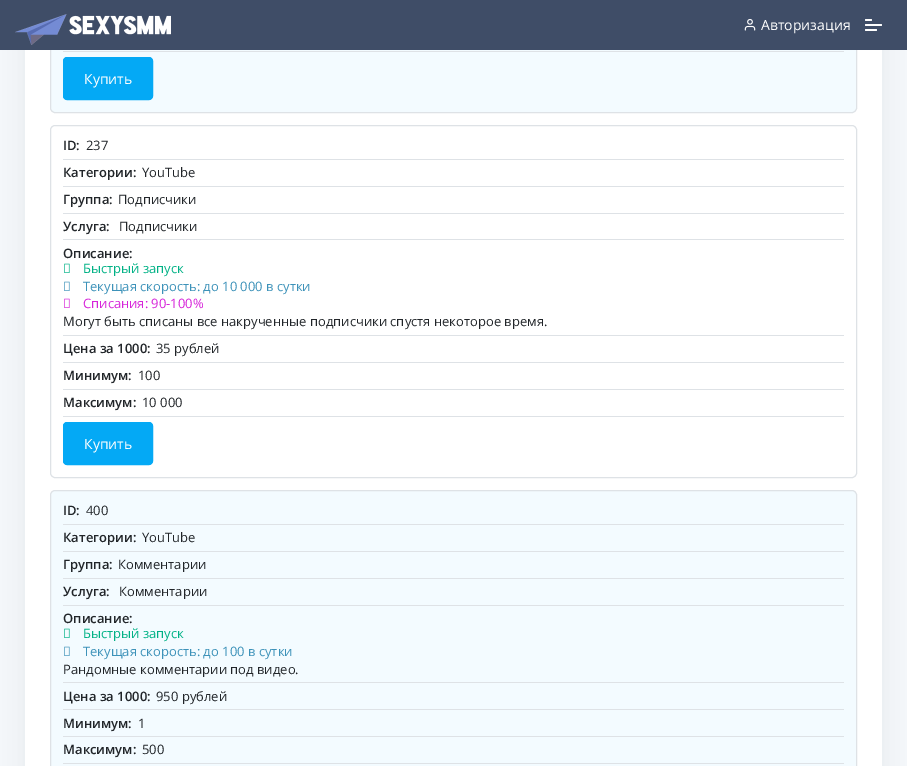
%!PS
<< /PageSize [907 766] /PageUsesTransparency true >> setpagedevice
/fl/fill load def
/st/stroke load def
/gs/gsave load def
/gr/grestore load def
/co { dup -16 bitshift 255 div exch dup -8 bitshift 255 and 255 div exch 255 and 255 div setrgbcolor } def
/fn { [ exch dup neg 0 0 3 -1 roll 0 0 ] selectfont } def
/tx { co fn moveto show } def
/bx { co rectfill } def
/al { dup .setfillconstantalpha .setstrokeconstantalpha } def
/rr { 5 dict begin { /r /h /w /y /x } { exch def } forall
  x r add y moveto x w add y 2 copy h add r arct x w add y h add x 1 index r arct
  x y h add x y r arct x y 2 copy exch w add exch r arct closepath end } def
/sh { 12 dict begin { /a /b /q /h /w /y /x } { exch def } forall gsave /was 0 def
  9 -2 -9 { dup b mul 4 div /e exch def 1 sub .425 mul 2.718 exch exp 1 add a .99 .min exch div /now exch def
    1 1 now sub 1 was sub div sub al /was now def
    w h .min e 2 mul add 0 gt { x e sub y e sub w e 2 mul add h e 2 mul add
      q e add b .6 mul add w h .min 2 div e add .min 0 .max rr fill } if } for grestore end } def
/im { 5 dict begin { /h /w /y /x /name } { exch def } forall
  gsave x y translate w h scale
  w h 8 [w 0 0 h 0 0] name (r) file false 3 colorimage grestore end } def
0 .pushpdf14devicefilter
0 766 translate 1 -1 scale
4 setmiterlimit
0 0 907 766 16#F4F7FA bx
16#455A64 co
25 -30 857 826 0 10 .08 sh
25 50 857 716 16#FFFFFF bx
16#F3FBFF co
50.5 -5.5 806 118 4.5 rr gs fl gr
16#DEE2E6 co
st
0 0 907 50 16#3F4D67 bx
(media/1.raw) 15 14 156 31 im
(media/2.raw) 744 19 12 12 im
16#FFFFFF co
865 24 17 2 1 rr fl
865 19 7 2 1 rr fl
865 29 12 2 1 rr fl
63 51 781 1 16#DEE2E6 bx
16#04A9F5 co
63.5 57.5 89 42 3.5 rr gs fl gr
st
16#DEE2E6 co
50.5 125.5 806 352 4.5 rr st
63 159 781 1 16#DEE2E6 bx
63 186 781 1 16#DEE2E6 bx
63 213 781 1 16#DEE2E6 bx
63 239 781 1 16#DEE2E6 bx
(media/3.raw) 64 263 6 10 im
(media/4.raw) 64 281 6 10 im
(media/5.raw) 64 298 6 10 im
63 335 781 1 16#DEE2E6 bx
63 362 781 1 16#DEE2E6 bx
63 389 781 1 16#DEE2E6 bx
63 416 781 1 16#DEE2E6 bx
16#04A9F5 co
63.5 422.5 89 42 3.5 rr gs fl gr
st
16#F3FBFF co
50.5 490.5 806 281 4.5 rr gs fl gr
16#DEE2E6 co
st
63 524 781 1 16#DEE2E6 bx
63 551 781 1 16#DEE2E6 bx
63 578 781 1 16#DEE2E6 bx
63 605 781 1 16#DEE2E6 bx
(media/6.raw) 64 628 6 10 im
(media/7.raw) 64 646 6 10 im
63 682 781 1 16#DEE2E6 bx
63 709 781 1 16#DEE2E6 bx
63 736 781 1 16#DEE2E6 bx
63 763 781 1 16#DEE2E6 bx
(Авторизация) 761 30 /OpenSans-Regular 14 16#FFFFFF tx
(Купить) 84 84 /OpenSans-Regular 14 16#FFFFFF tx
(ID:) 63 150 /OpenSans-SemiBold 13 16#212529 tx
(237) 86 150 /OpenSans-Regular 13 16#212529 tx
(Категории:) 63 177 /OpenSans-SemiBold 13 16#212529 tx
(YouTube) 142 177 /OpenSans-Regular 13 16#212529 tx
(Группа:) 63 204 /OpenSans-SemiBold 13 16#212529 tx
(Подписчики) 118 204 /OpenSans-Regular 13 16#212529 tx
(Услуга:) 63 231 /OpenSans-SemiBold 13 16#212529 tx
(Подписчики) 119 231 /OpenSans-Regular 13 16#212529 tx
(Описание:) 63 258 /OpenSans-SemiBold 13 16#212529 tx
(Быстрый запуск) 83 273 /OpenSans-Regular 13 16#00B185 tx
(Текущая скорость: до 10 000 в сутки) 83 291 /OpenSans-Regular 13 16#3D92B9 tx
(Списания: 90-100%) 83 308 /OpenSans-Regular 13 16#D624D9 tx
(Могут быть списаны все накрученные подписчики спустя некоторое время.) 63 326 /OpenSans-Regular 13 16#212529 tx
(Цена за 1000:) 63 353 /OpenSans-SemiBold 13 16#212529 tx
(35 рублей) 156 353 /OpenSans-Regular 13 16#212529 tx
(Минимум:) 63 380 /OpenSans-SemiBold 13 16#212529 tx
(100) 138 380 /OpenSans-Regular 13 16#212529 tx
(Максимум:) 63 407 /OpenSans-SemiBold 13 16#212529 tx
(10 000) 142 407 /OpenSans-Regular 13 16#212529 tx
(Купить) 84 449 /OpenSans-Regular 14 16#FFFFFF tx
(ID:) 63 515 /OpenSans-SemiBold 13 16#212529 tx
(400) 86 515 /OpenSans-Regular 13 16#212529 tx
(Категории:) 63 542 /OpenSans-SemiBold 13 16#212529 tx
(YouTube) 142 542 /OpenSans-Regular 13 16#212529 tx
(Группа:) 63 569 /OpenSans-SemiBold 13 16#212529 tx
(Комментарии) 118 569 /OpenSans-Regular 13 16#212529 tx
(Услуга:) 63 596 /OpenSans-SemiBold 13 16#212529 tx
(Комментарии) 119 596 /OpenSans-Regular 13 16#212529 tx
(Описание:) 63 623 /OpenSans-SemiBold 13 16#212529 tx
(Быстрый запуск) 83 638 /OpenSans-Regular 13 16#00B185 tx
(Текущая скорость: до 100 в сутки) 83 656 /OpenSans-Regular 13 16#3D92B9 tx
(Рандомные комментарии под видео.) 63 674 /OpenSans-Regular 13 16#212529 tx
(Цена за 1000:) 63 701 /OpenSans-SemiBold 13 16#212529 tx
(950 рублей) 156 701 /OpenSans-Regular 13 16#212529 tx
(Минимум:) 63 728 /OpenSans-SemiBold 13 16#212529 tx
(1) 138 728 /OpenSans-Regular 13 16#212529 tx
(Максимум:) 63 754 /OpenSans-SemiBold 13 16#212529 tx
(500) 142 754 /OpenSans-Regular 13 16#212529 tx
.poppdf14devicefilter showpage
